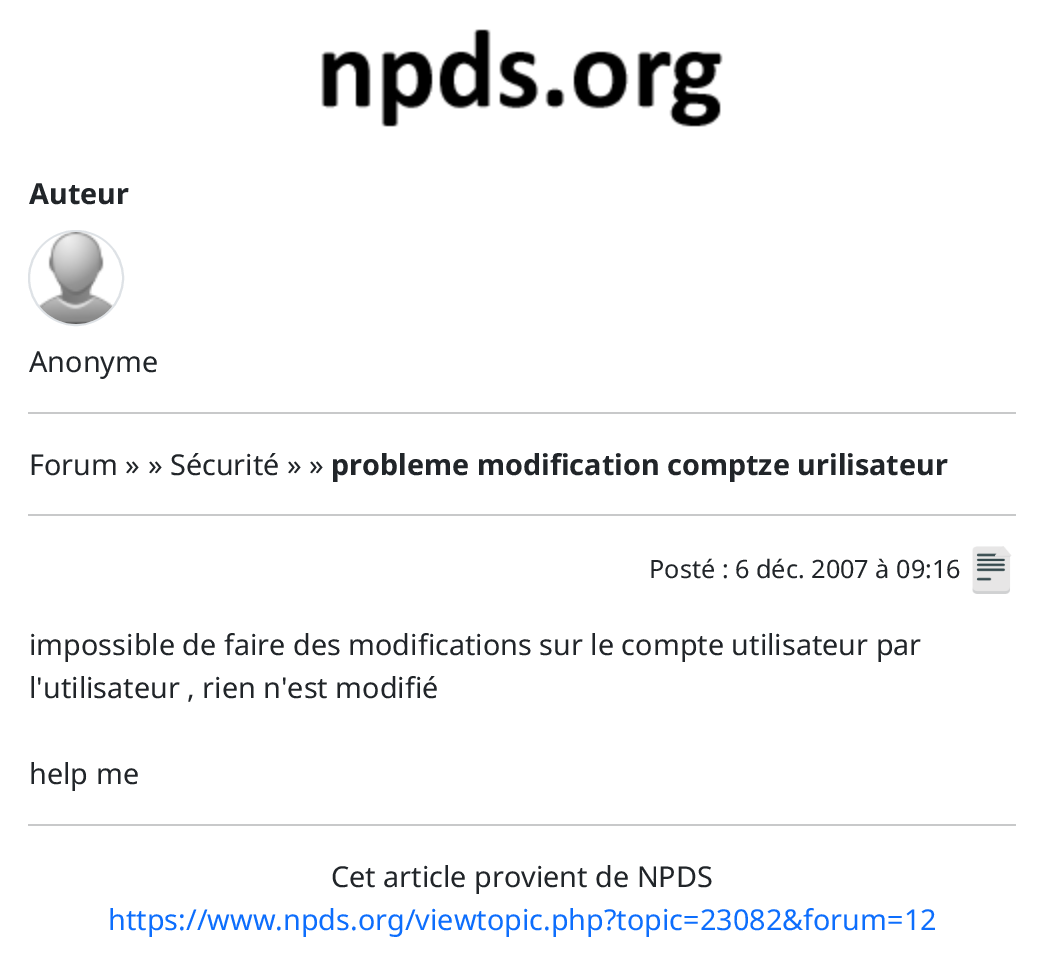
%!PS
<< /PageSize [1044 965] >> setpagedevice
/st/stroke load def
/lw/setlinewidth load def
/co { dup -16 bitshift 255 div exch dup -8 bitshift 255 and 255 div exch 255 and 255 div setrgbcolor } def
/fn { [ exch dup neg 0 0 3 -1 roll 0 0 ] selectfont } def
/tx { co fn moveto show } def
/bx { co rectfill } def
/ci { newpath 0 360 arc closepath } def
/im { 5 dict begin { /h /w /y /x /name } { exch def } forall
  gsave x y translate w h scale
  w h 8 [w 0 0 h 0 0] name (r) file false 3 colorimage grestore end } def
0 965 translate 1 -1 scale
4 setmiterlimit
0 0 1044 965 16#FFFFFF bx
(media/1.raw) 321 29 402 98 im
16#DEE2E6 co
2 lw
76 278 47 ci st
(media/2.raw) 39 232 74 92 im
28 412 988 2 16#C8C9CA bx
28 514 988 2 16#C8C9CA bx
(media/3.raw) 972 546 40 48 im
28 824 988 2 16#C8C9CA bx
(Auteur) 29 204 /NotoSans-Bold 28.8 16#212529 tx
(Anonyme) 29 372 /NotoSans-Regular 28.8 16#212529 tx
(Forum » » Sécurité » ») 29 475 /NotoSans-Regular 28.8 16#212529 tx
(probleme modification comptze urilisateur) 331 475 /NotoSans-Bold 28.8 16#212529 tx
(Posté : 6 déc. 2007 à 09:16) 649 578 /NotoSans-Regular 25.25 16#212529 tx
(impossible de faire des modifications sur le compte utilisateur par) 29 655 /NotoSans-Regular 28.8 16#212529 tx
(l'utilisateur , rien n'est modifié) 29 698 /NotoSans-Regular 28.8 16#212529 tx
(help me) 29 784 /NotoSans-Regular 28.8 16#212529 tx
(Cet article provient de NPDS) 331 887 /NotoSans-Regular 28.8 16#212529 tx
(https://www.npds.org/viewtopic.php?topic=23082&forum=12) 108 930 /NotoSans-Regular 28.8 16#0D6EFD tx
showpage
